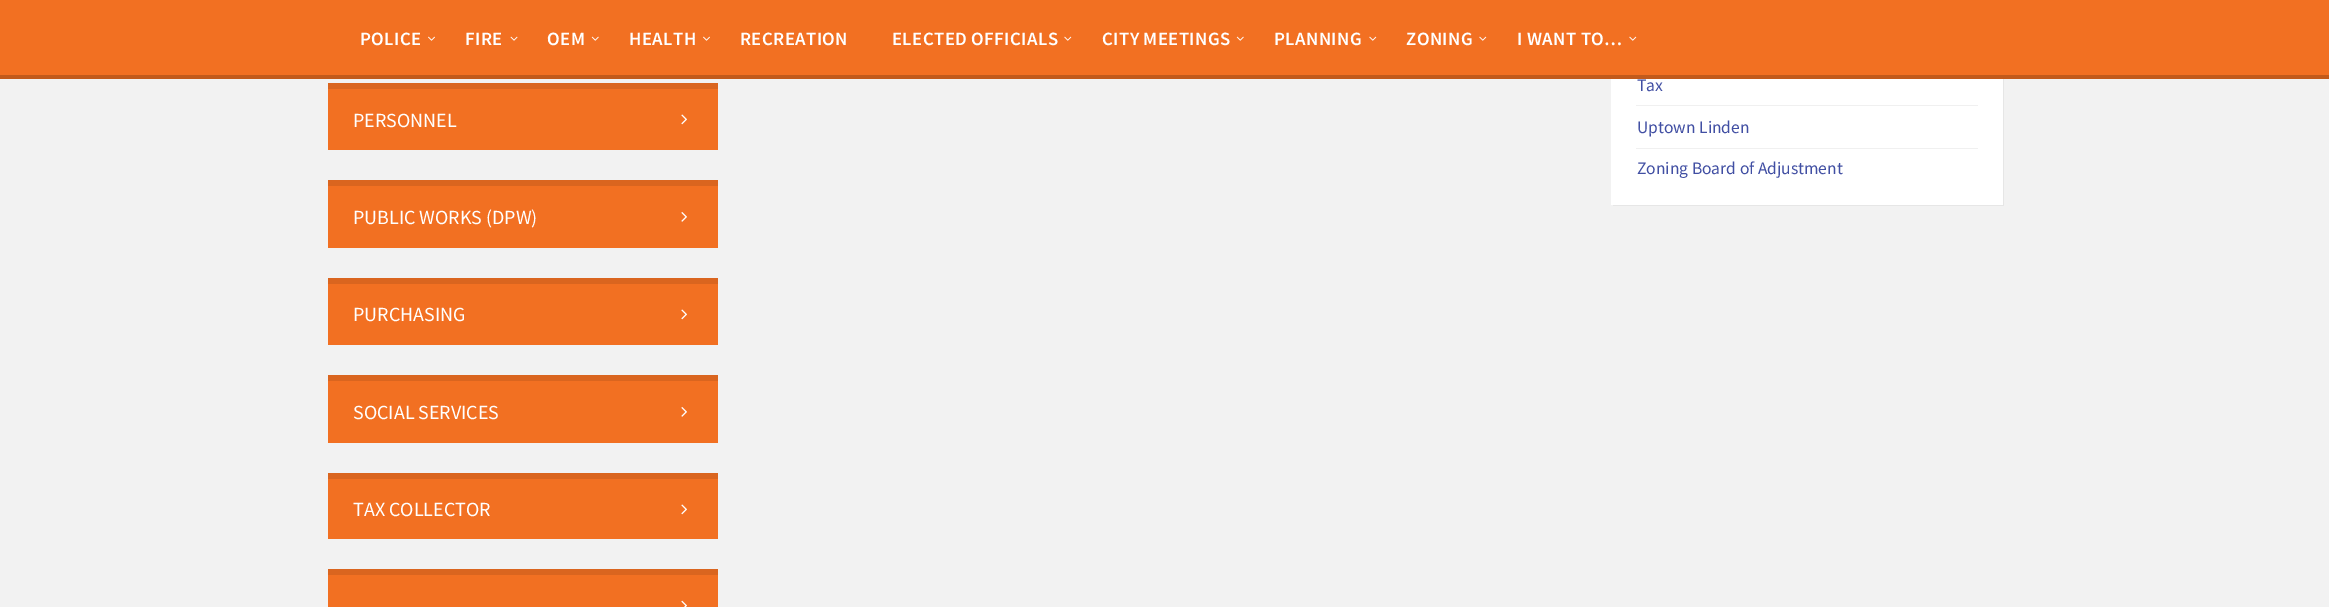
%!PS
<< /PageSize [2329 607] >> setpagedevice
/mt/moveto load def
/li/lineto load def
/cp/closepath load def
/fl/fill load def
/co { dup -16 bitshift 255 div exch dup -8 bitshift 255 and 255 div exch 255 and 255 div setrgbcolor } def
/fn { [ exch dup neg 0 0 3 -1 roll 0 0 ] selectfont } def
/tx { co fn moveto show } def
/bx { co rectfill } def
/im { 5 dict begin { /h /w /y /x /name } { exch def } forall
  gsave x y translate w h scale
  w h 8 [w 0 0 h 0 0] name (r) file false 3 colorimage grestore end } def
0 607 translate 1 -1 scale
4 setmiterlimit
0 0 2329 607 16#F2F2F2 bx
16#E6E6E6 co
1613 205 mt 1613 206 li 2004 206 li 2004 -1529 li 2002 -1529 li 2002 205 li cp fl
0 0 2329 75 16#F27022 bx
0 75 2329 4 16#C25A1B bx
(media/1.raw) 428 36 7 5 im
(media/2.raw) 510 36 8 5 im
(media/3.raw) 591 36 8 5 im
(media/1.raw) 703 36 7 5 im
(media/4.raw) 1064 36 8 5 im
(media/3.raw) 1236 36 8 5 im
(media/4.raw) 1369 36 8 5 im
(media/4.raw) 1479 36 8 5 im
(media/4.raw) 1629 36 8 5 im
328 89 390 61 16#F27022 bx
328 83 390 6 16#DA651F bx
(media/5.raw) 681 114 6 11 im
328 186 390 62 16#F27022 bx
328 180 390 6 16#DA651F bx
(media/6.raw) 681 212 6 10 im
328 284 390 61 16#F27022 bx
328 278 390 6 16#DA651F bx
(media/5.raw) 681 309 6 11 im
328 381 390 62 16#F27022 bx
328 375 390 6 16#DA651F bx
(media/6.raw) 681 407 6 10 im
328 479 390 60 16#F27022 bx
328 473 390 6 16#DA651F bx
(media/5.raw) 681 504 6 11 im
328 575 390 32 16#F27022 bx
328 569 390 6 16#DA651F bx
(media/7.raw) 681 600 6 7 im
1611 79 392 126 16#FFFFFF bx
1636 105 342 1 16#F0F0F0 bx
1636 148 342 1 16#F0F0F0 bx
/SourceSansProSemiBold-SemiBold 18.75 fn
16#FFFFFF co
360 45 mt .4 0 (POLICE) ashow
465 45 mt .4 0 (FIRE) ashow
547 45 mt .4 0 (OEM) ashow
629 45 mt .4 0 (HEALTH) ashow
740 45 mt .4 0 (RECREATION) ashow
892 45 mt .4 0 (ELECTED OFFICIALS) ashow
1102 45 mt .4 0 (CITY MEETINGS) ashow
1274 45 mt .4 0 (PLANNING) ashow
1406 45 mt .4 0 (ZONING) ashow
1517 45 mt .4 0 (I WANT TO…) ashow
(PERSONNEL) 353 127 /SourceSansPro-Regular 20 16#FFFFFF tx
(PUBLIC WORKS \(DPW\)) 353 224 /SourceSansPro-Regular 20 16#FFFFFF tx
(PURCHASING) 353 321 /SourceSansPro-Regular 20 16#FFFFFF tx
(SOCIAL SERVICES) 353 419 /SourceSansPro-Regular 20 16#FFFFFF tx
(TAX COLLECTOR) 353 516 /SourceSansPro-Regular 20 16#FFFFFF tx
(Tax) 1637 91 /SourceSansPro-Regular 17.5 16#414FA3 tx
(Uptown Linden) 1637 133 /SourceSansPro-Regular 17.5 16#414FA3 tx
(Zoning Board of Adjustment) 1637 174 /SourceSansPro-Regular 17.5 16#414FA3 tx
showpage
